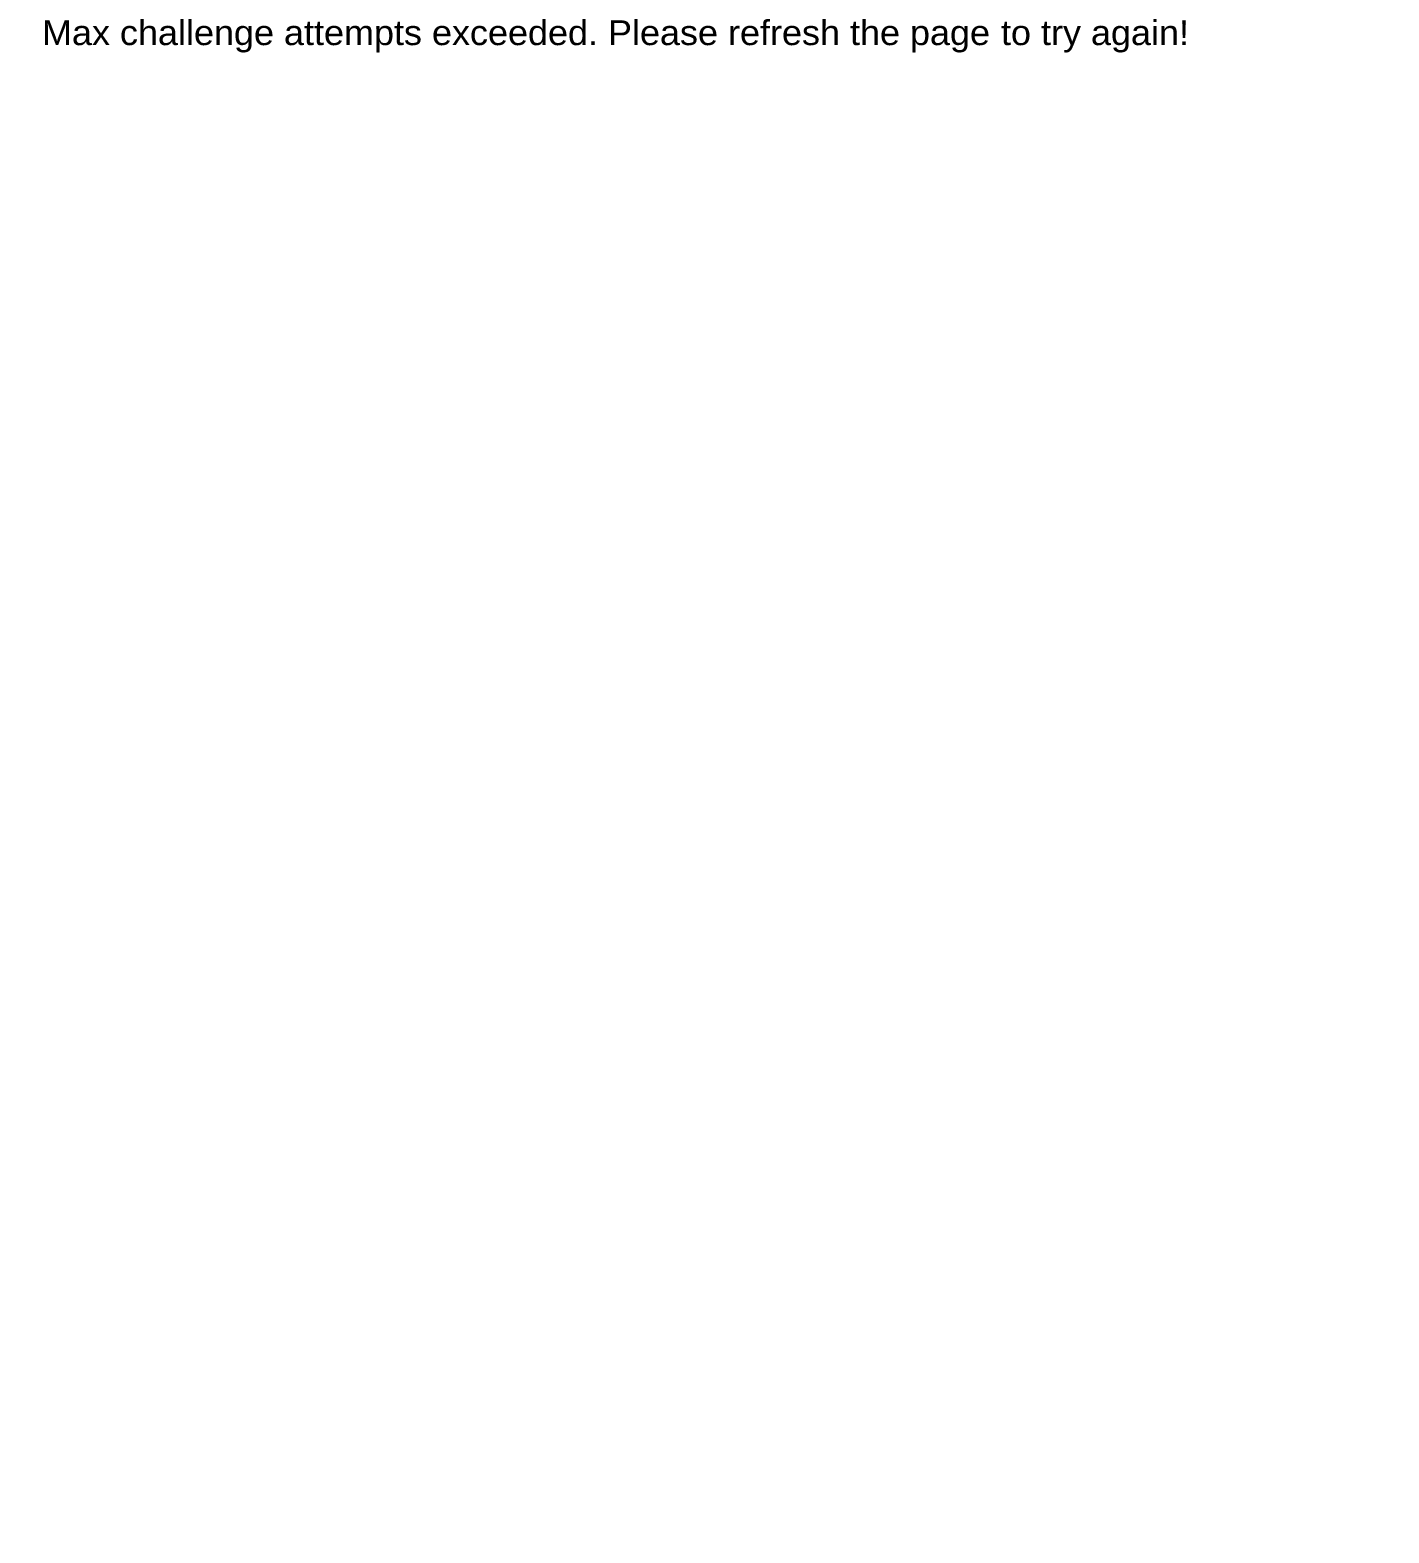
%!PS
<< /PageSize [1419 1563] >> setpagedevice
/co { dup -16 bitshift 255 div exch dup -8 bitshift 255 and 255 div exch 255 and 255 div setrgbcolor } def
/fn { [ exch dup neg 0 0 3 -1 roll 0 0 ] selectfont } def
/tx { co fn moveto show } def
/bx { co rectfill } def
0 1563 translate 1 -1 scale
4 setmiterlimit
0 0 1419 1563 16#FFFFFF bx
(Max challenge attempts exceeded. Please refresh the page to try again!) 42 45 /LiberationSans-Regular 36 16#000000 tx
showpage
